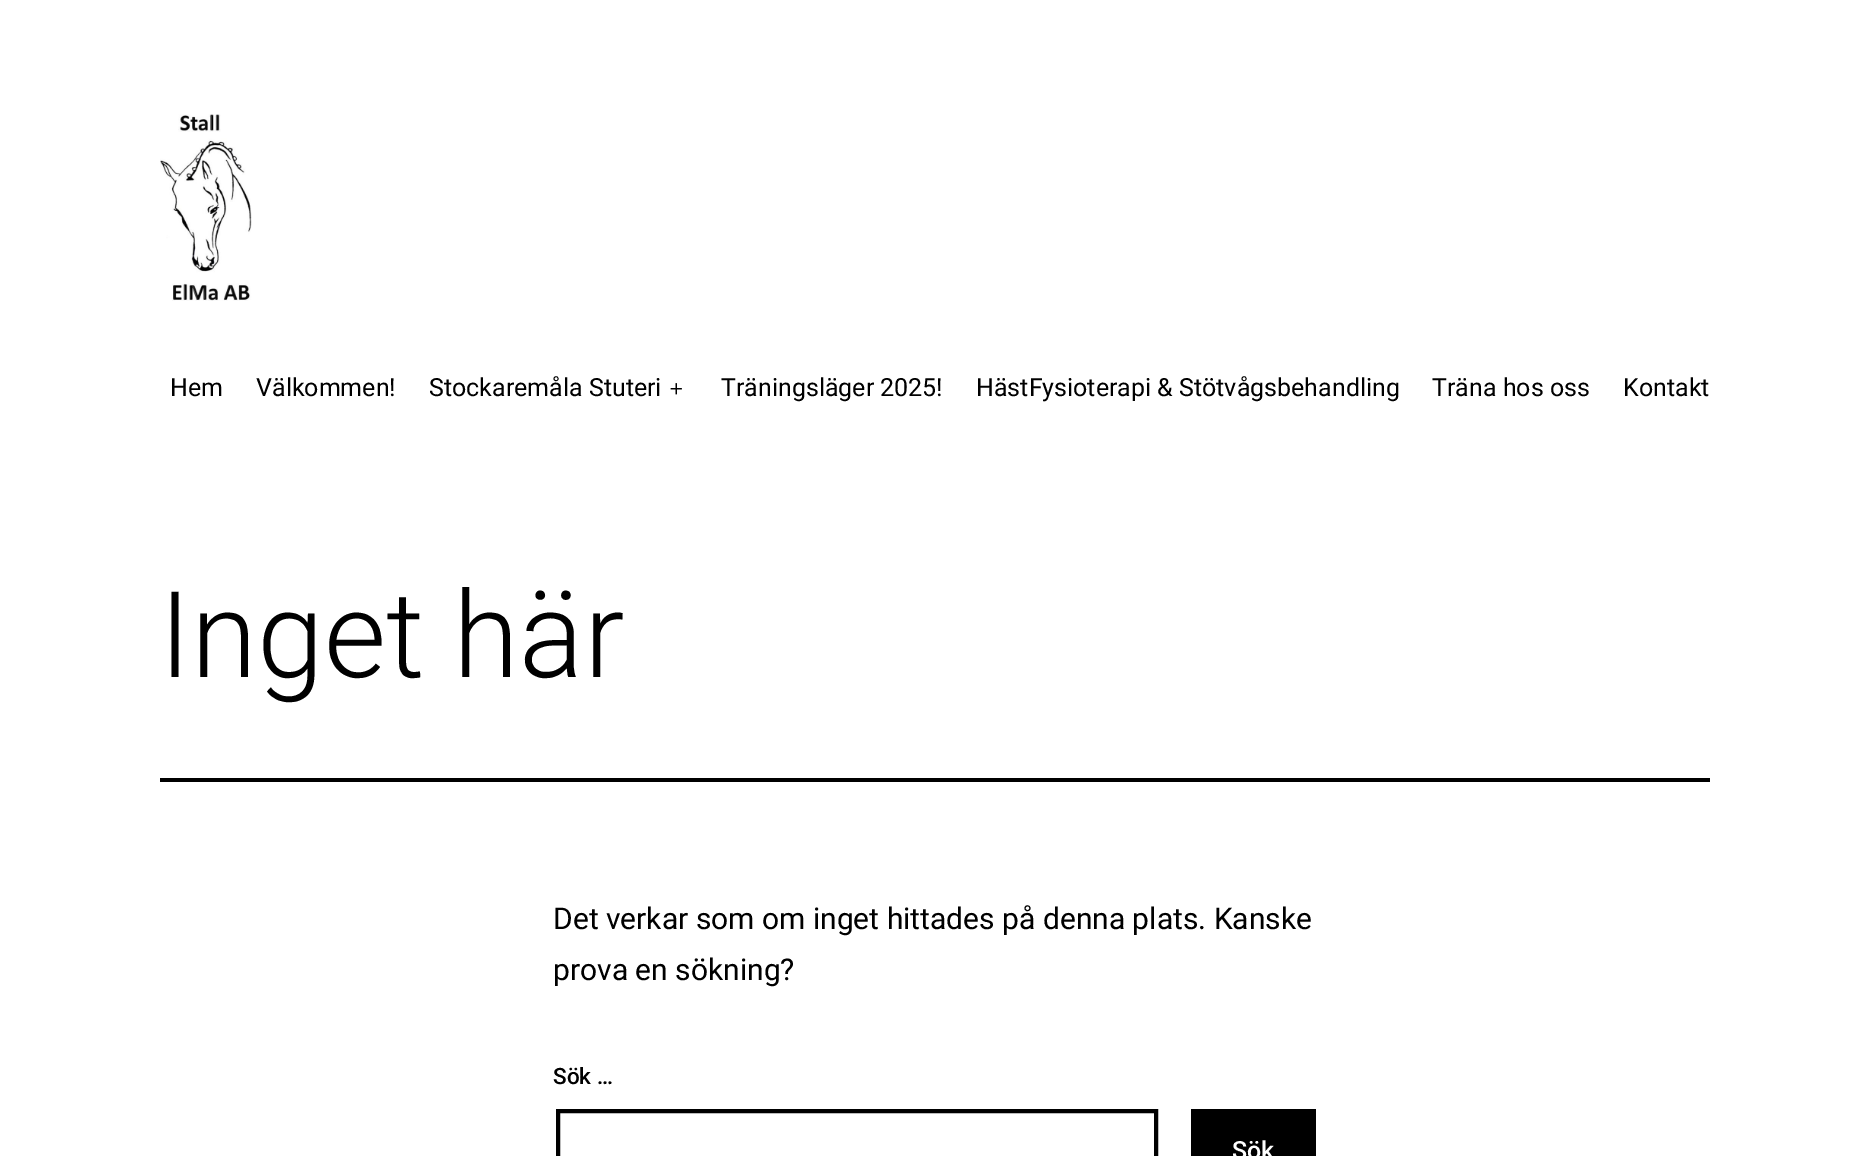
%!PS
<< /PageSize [1868 1156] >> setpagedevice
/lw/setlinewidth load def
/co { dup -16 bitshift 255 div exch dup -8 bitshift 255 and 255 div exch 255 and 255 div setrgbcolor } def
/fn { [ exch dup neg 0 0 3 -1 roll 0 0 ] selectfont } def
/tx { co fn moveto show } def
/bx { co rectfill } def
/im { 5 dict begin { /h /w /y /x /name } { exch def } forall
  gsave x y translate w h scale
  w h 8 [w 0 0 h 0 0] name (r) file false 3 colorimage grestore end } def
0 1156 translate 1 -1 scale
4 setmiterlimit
0 0 1868 1156 16#FFFFFF bx
(media/1.raw) 160 114 92 187 im
(media/2.raw) 670 383 12 12 im
160 778 1550 4 16#000000 bx
4 lw
558 1111 598 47 rectstroke
1191 1109 125 47 16#000000 bx
(Hem) 170 396 /Roboto-Regular 25 16#000000 tx
(Välkommen!) 256 396 /Roboto-Regular 25 16#000000 tx
(Stockaremåla Stuteri) 429 396 /Roboto-Regular 25 16#000000 tx
(Träningsläger 2025!) 721 396 /Roboto-Regular 25 16#000000 tx
(HästFysioterapi & Stötvågsbehandling) 976 396 /Roboto-Regular 25 16#000000 tx
(Träna hos oss) 1432 396 /Roboto-Regular 25 16#000000 tx
(Kontakt) 1623 396 /Roboto-Regular 25 16#000000 tx
(Inget här) 159 677 /Roboto-Light 120 16#000000 tx
(Det verkar som om inget hittades på denna plats. Kanske) 553 929 /Roboto-Regular 30 16#000000 tx
(prova en sökning?) 553 980 /Roboto-Regular 30 16#000000 tx
(Sök …) 553 1084 /Roboto-Medium 22.5 16#000000 tx
(Sök) 1232 1159 /Roboto-Medium 25 16#FFFFFF tx
showpage
